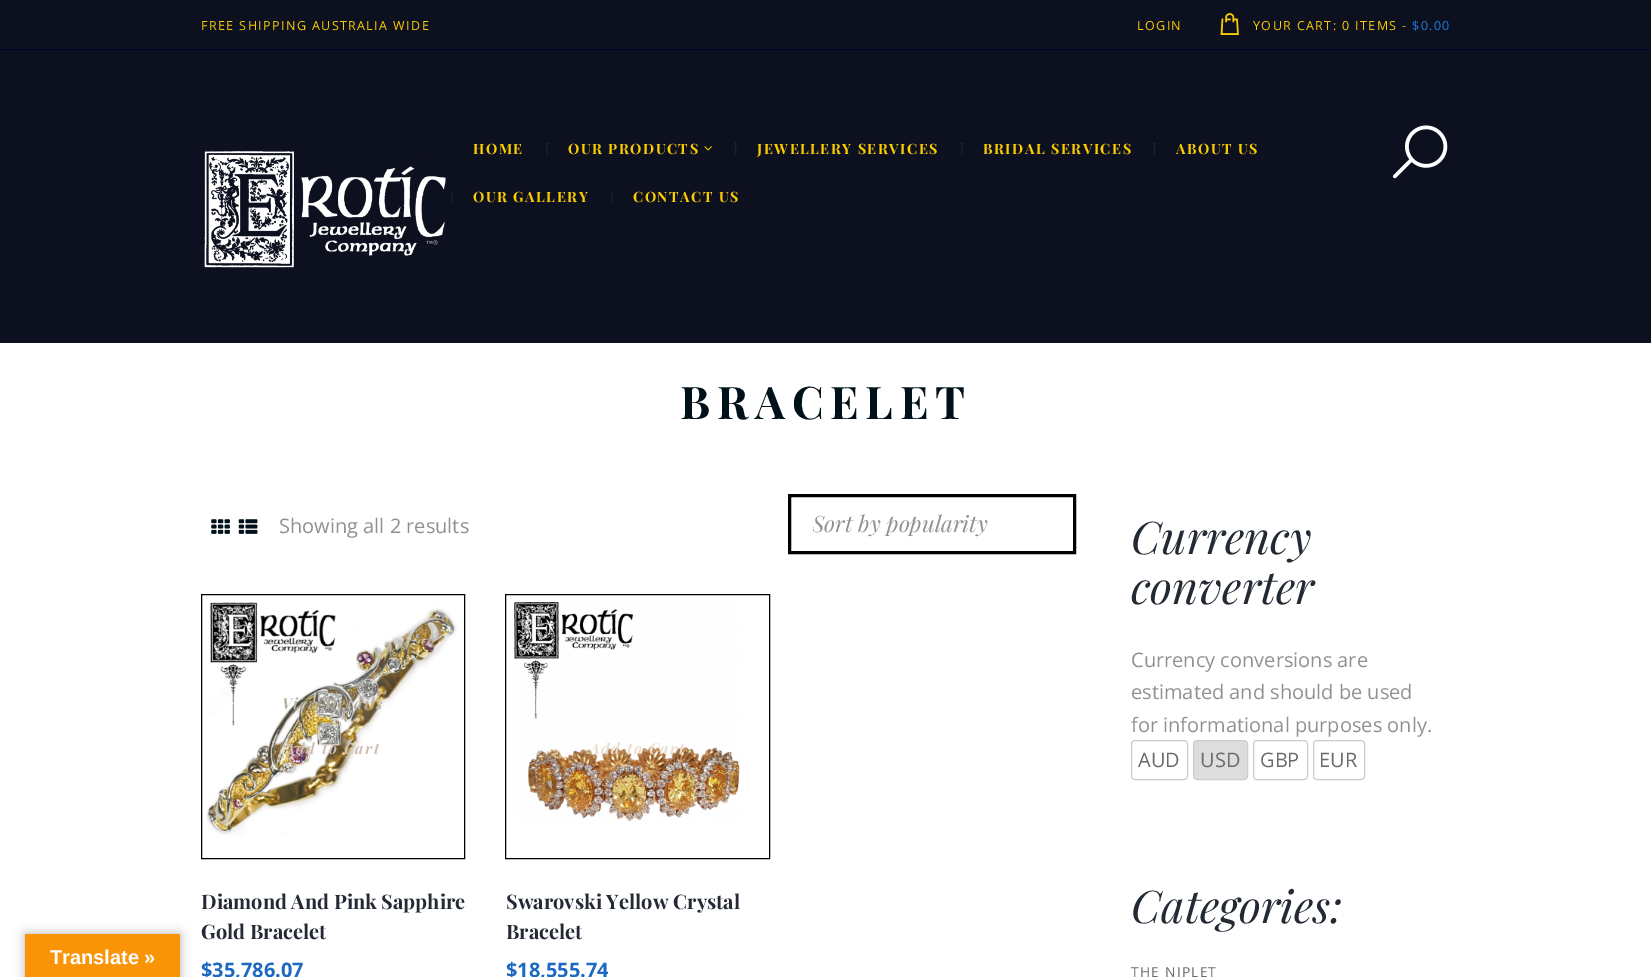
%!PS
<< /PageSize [1651 977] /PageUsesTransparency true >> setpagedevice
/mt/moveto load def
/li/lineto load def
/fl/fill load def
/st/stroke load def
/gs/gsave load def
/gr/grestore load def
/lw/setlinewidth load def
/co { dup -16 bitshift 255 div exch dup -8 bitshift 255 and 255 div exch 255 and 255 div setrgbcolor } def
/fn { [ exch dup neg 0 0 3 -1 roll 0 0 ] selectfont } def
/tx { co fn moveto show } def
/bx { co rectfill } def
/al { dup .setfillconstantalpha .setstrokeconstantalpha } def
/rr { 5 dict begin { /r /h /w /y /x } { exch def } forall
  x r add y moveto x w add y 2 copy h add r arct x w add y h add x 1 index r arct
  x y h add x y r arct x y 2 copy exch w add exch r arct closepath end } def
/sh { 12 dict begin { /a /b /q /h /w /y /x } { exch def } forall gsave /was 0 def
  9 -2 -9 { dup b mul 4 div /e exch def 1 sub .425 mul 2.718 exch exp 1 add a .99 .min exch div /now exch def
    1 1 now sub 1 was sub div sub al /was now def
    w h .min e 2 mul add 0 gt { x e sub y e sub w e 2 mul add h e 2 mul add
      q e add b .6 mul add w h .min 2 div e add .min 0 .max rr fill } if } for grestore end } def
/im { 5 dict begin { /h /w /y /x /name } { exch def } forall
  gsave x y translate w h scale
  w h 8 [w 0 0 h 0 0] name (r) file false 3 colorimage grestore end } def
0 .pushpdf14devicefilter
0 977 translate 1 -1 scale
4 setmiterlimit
0 0 1651 977 16#FFFFFF bx
16#000000 co
25 934 155 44 0 5.5 .3 sh
25 934 155 43 16#F89406 bx
0 0 1651 49 16#0D101F bx
0 49 1651 1 16#00022B bx
(media/1.raw) 1220 13 19 22 im
0 50 1651 293 16#0D101F bx
(media/2.raw) 204 151 242 117 im
16#2B2E41 co
1.2 lw
[1.25 1.25] 0 setdash
547 143 mt 547 154.5 li st
(media/3.raw) 704 146 8 5 im
735.5 143 mt 735.5 154.5 li st
962 143 mt 962 154.5 li st
1154.5 143 mt 1154.5 154.5 li st
452 192 mt 452 203 li st
612 192 mt 612 203 li st
(media/4.raw) 1392 125 56 54 im
(media/5.raw) 211 519 19 15 im
(media/6.raw) 238 519 20 15 im
16#000000 co
3 lw
[] 0 setdash
789.5 495.5 285 57 rectstroke
(media/7.raw) 206 602 251 234 im
1 lw
201.5 594.5 263 264 rectstroke
(media/8.raw) 514 602 226 219 im
505.5 594.5 264 264 rectstroke
16#CCCCCC co
1131.5 740.5 56 39 3.5 rr st
16#DDDDDD co
1193.5 740.5 54 39 3.5 rr gs fl gr
16#CCCCCC co
st
1253.5 740.5 54 39 3.5 rr st
1313.5 740.5 51 39 3.5 rr st
(Translate ») 50 964 /LiberationSans-Bold 20 16#FFFFFF tx
/OpenSans-Regular 12.5 fn
16#FCCE00 co
201 30 mt 1.4 0 (FREE SHIPPING AUSTRALIA WIDE) ashow
1137 30 mt 1.4 0 (LOGIN) ashow
1253 30 mt 1.4 0 (YOUR CART: 0 ITEMS -) ashow
16#217AE0 co
1412 30 mt 1.4 0 ($0.00) ashow
/PlayfairDisplay-Bold 14.25 fn
16#FCCE00 co
473 154 mt 1.5 0 (HOME) ashow
568 154 mt 1.5 0 (OUR PRODUCTS) ashow
757 154 mt 1.5 0 (JEWELLERY SERVICES) ashow
983 154 mt 1.5 0 (BRIDAL SERVICES) ashow
1176 154 mt 1.5 0 (ABOUT US) ashow
473 202 mt 1.5 0 (OUR GALLERY) ashow
633 202 mt 1.5 0 (CONTACT US) ashow
/PlayfairDisplay-Bold 45 fn
16#00111A co
680 419 mt 6.75 0 (BRACELET) ashow
(Showing all 2 results) 279 533 /OpenSans-Regular 20 16#919191 tx
gs
813 510 238 29 rectclip
(Sort by popularity) 812 532 /PlayfairDisplay-Italic 22.5 16#919191 tx
gr
/PlayfairDisplay-BoldItalic 15 fn
16#B5AE9B co
282 709 mt 1.5 0 (View Details) ashow
16#CDBFB5 co
285 754 mt 1.5 0 (Add to Cart) ashow
(Diamond And Pink Sapphire) 201 909 /PlayfairDisplay-Bold 20 16#232A34 tx
(Gold Bracelet) 201 939 /PlayfairDisplay-Bold 20 16#232A34 tx
($35,786.07) 201 977 /OpenSans-Bold 20 16#1D69C1 tx
/PlayfairDisplay-BoldItalic 15 fn
16#EBDED1 co
590 754 mt 1.5 0 (Add to Cart) ashow
(Swarovski Yellow Crystal) 506 909 /PlayfairDisplay-Bold 20 16#232A34 tx
(Bracelet) 506 939 /PlayfairDisplay-Bold 20 16#232A34 tx
($18,555.74) 506 977 /OpenSans-Bold 20 16#1D69C1 tx
(Currency) 1131 554 /PlayfairDisplay-Italic 45 16#232A34 tx
(converter) 1131 604 /PlayfairDisplay-Italic 45 16#232A34 tx
(Currency conversions are) 1131 667 /OpenSans-Regular 20 16#919191 tx
(estimated and should be used) 1131 699 /OpenSans-Regular 20 16#919191 tx
(for informational purposes only.) 1131 732 /OpenSans-Regular 20 16#919191 tx
(AUD) 1138 767 /OpenSans-Regular 20 16#6B6B6B tx
(USD) 1200 767 /OpenSans-Regular 20 16#6B6B6B tx
(GBP) 1260 767 /OpenSans-Regular 20 16#6B6B6B tx
(EUR) 1319 767 /OpenSans-Regular 20 16#6B6B6B tx
(Categories:) 1131 923 /PlayfairDisplay-Italic 45 16#232A34 tx
/OpenSans-Regular 13.75 fn
16#6B6B6B co
1131 977 mt 1.25 0 (THE NIPLET) ashow
.poppdf14devicefilter showpage
